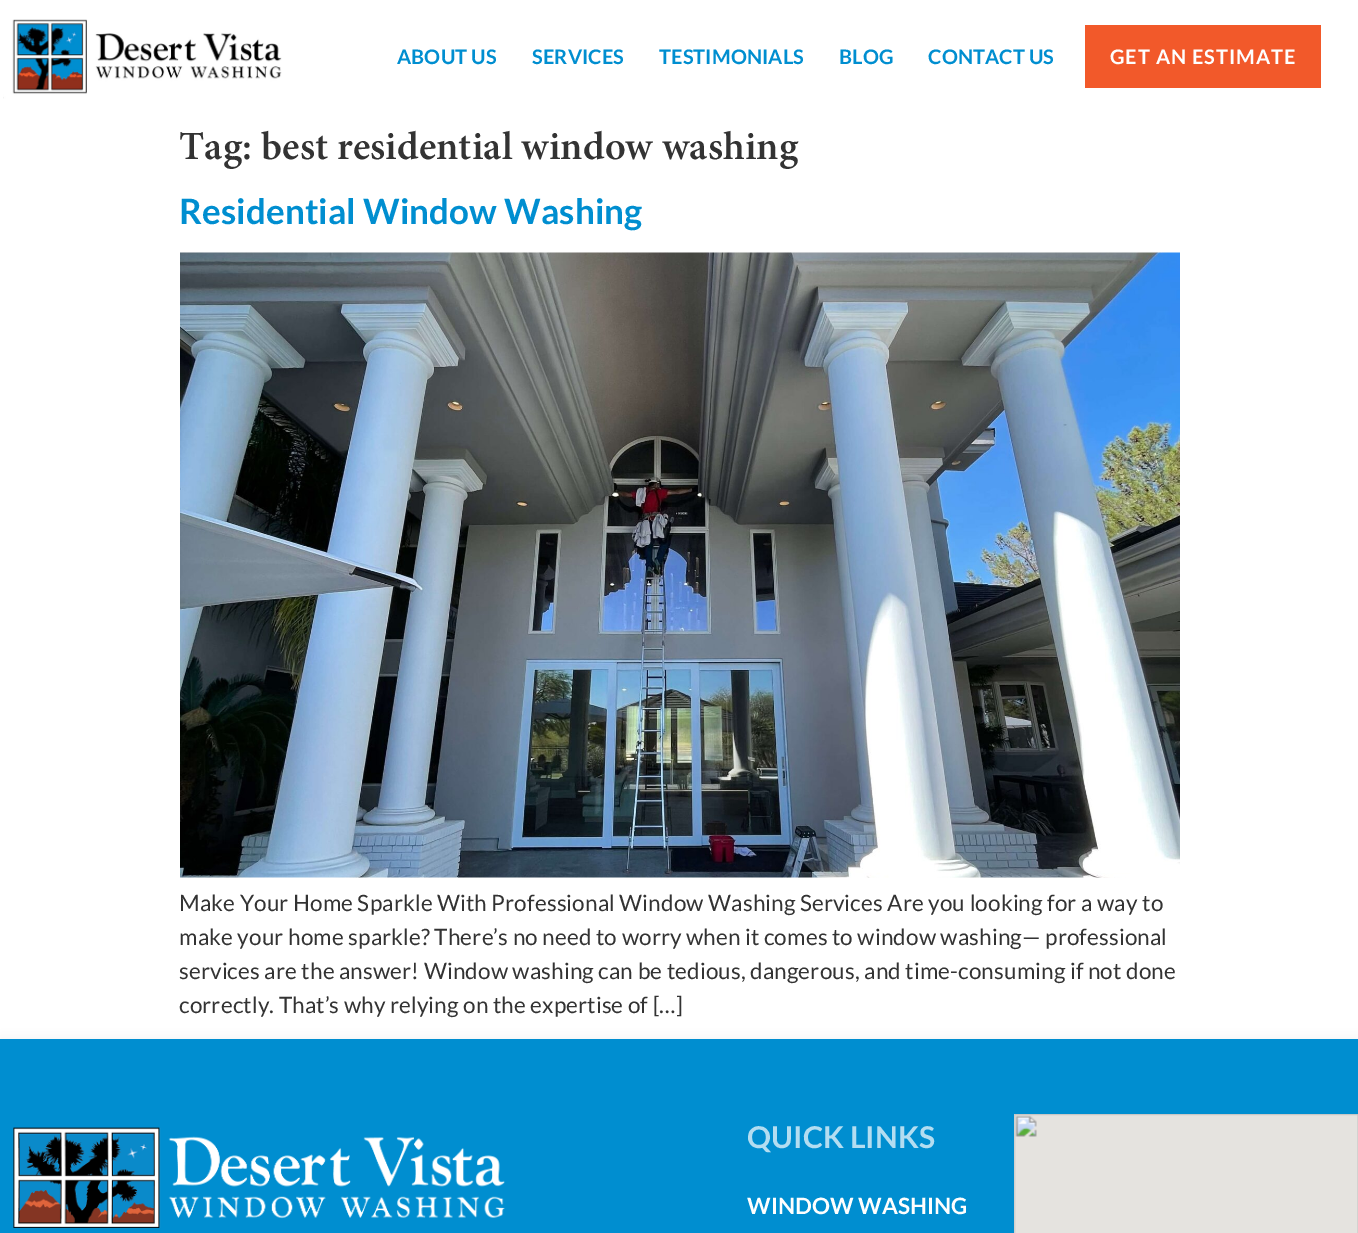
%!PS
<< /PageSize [1358 1233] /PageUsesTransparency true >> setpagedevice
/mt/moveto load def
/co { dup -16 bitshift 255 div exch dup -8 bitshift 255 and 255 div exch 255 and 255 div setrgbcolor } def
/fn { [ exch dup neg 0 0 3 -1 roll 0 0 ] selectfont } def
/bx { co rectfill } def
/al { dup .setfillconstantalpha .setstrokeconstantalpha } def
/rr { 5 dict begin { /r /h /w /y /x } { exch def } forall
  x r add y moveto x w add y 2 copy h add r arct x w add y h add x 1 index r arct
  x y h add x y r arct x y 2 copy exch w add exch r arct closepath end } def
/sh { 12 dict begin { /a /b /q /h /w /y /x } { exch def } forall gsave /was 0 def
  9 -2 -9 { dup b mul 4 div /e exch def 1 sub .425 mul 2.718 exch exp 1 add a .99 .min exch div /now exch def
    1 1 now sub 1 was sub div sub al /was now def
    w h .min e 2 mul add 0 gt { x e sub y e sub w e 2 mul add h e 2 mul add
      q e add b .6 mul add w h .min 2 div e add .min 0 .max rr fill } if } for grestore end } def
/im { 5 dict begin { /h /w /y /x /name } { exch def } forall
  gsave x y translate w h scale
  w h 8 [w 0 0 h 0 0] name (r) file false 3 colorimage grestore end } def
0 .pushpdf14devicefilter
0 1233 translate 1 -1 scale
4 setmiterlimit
0 0 1358 1233 16#FFFFFF bx
(media/1.raw) 3 19 279 80 im
1085 25 236 63 16#F2592A bx
(media/2.raw) 180 252 1000 626 im
16#000000 co
0 1039 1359 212 0 6 .05 sh
0 1039 1358 194 16#008ED0 bx
(media/3.raw) 12 1127 493 102 im
(media/4.raw) 1014 1114 344 119 im
/Lato-Bold 20 fn
397 64 mt .12 0 (ABOUT US) ashow
532 64 mt .12 0 (SERVICES) ashow
659 64 mt .12 0 (TESTIMONIALS) ashow
839 64 mt .12 0 (BLOG) ashow
928 64 mt .12 0 (CONTACT US) ashow
16#FEFEFE co
1110 64 mt 1 0 (GET AN ESTIMATE) ashow
/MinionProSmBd-SemiBold 40 fn
16#333333 co
179 159 mt .12 0 (Tag: best residential window washing) ashow
/Lato-Bold 35 fn
16#008ED0 co
179 224 mt .12 0 (Residential Window Washing) ashow
/Lato-Regular 22.5 fn
16#333333 co
179 911 mt .12 0 (Make Your Home Sparkle With Professional Window Washing Services Are you looking for a way to) ashow
179 945 mt .12 0 (make your home sparkle? There’s no need to worry when it comes to window washing— professional) ashow
179 979 mt .12 0 (services are the answer! Window washing can be tedious, dangerous, and time-consuming if not done) ashow
179 1013 mt .12 0 (correctly. That’s why relying on the expertise of […]) ashow
/Lato-Bold 30 fn
16#B3DDF1 co
747 1148 mt .12 0 (QUICK LINKS) ashow
/Lato-Bold 22.5 fn
16#FEFEFE co
747 1214 mt .12 0 (WINDOW WASHING) ashow
.poppdf14devicefilter showpage
